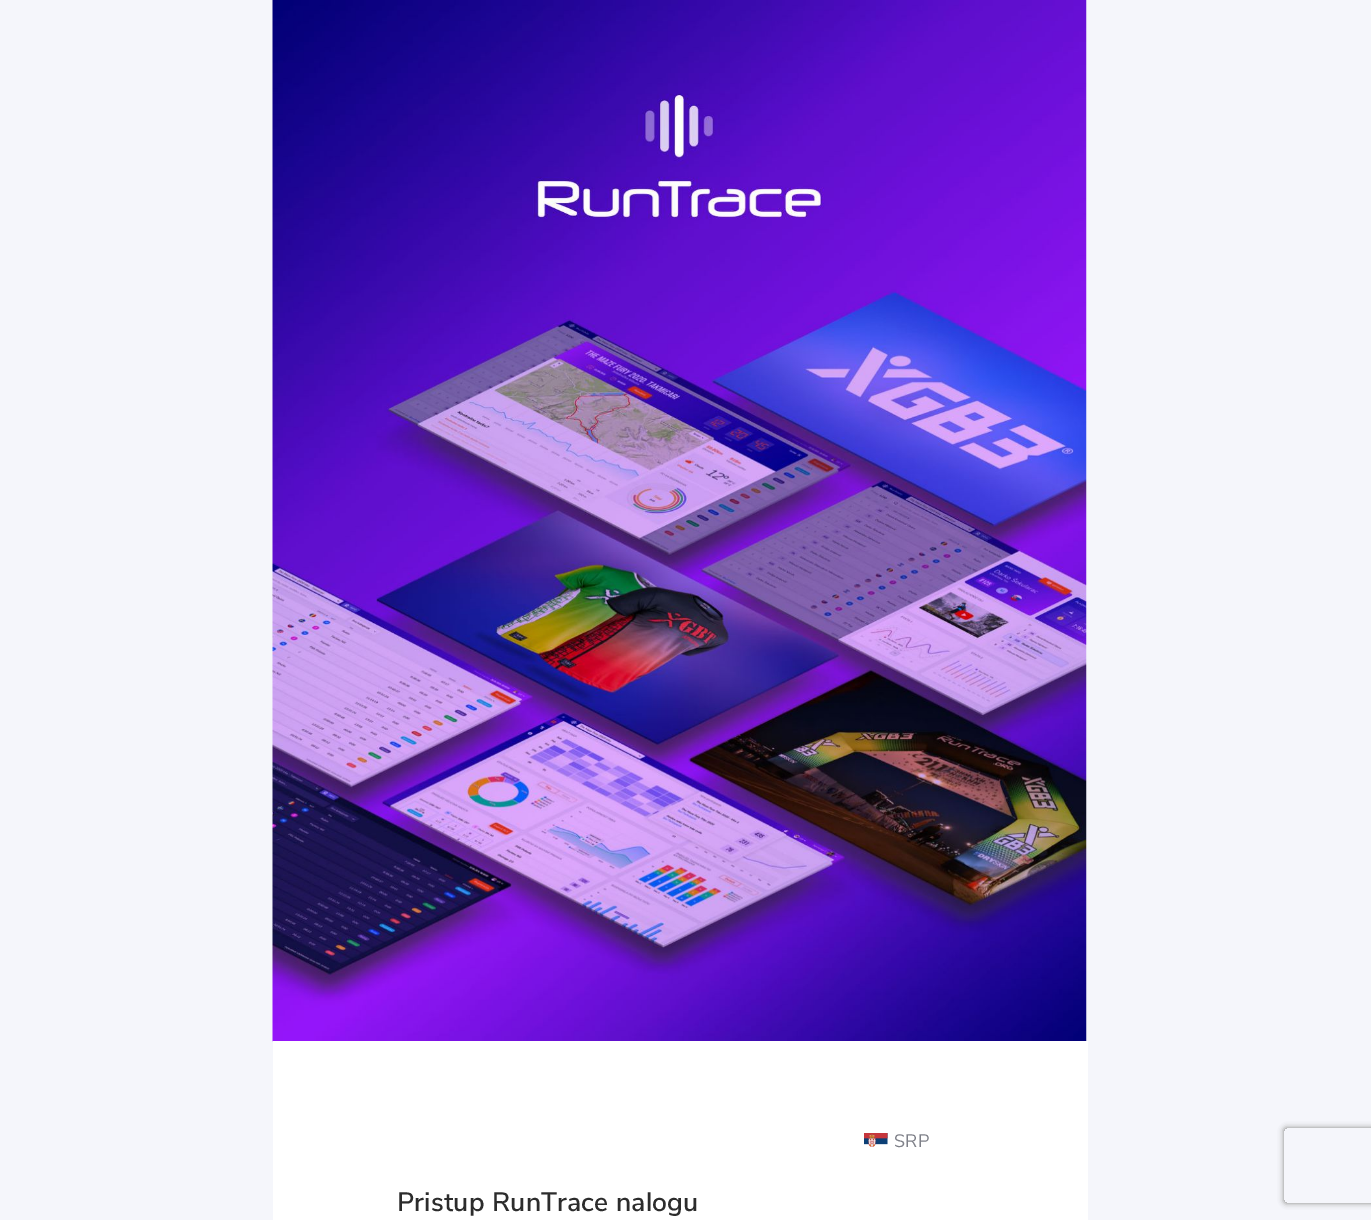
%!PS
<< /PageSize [1371 1220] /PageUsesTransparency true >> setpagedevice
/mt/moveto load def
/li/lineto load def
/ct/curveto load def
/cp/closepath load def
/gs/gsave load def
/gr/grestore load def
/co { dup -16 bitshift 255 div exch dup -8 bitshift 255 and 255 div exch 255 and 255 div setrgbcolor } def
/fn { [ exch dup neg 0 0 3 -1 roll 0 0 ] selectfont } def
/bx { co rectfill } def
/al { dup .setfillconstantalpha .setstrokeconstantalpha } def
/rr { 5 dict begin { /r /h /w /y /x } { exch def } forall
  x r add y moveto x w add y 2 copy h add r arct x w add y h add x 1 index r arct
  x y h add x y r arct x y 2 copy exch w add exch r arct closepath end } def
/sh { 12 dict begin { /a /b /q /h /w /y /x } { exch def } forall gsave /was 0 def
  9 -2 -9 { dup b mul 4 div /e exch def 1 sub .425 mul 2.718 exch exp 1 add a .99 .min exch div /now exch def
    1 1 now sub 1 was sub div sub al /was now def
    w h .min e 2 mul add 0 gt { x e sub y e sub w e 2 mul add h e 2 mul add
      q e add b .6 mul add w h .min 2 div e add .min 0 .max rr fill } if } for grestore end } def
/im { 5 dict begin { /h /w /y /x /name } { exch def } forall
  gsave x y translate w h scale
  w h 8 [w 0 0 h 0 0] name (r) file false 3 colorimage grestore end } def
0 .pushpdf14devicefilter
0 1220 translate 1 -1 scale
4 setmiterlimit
0 0 1371 1220 16#F5F6FB bx
(media/1.raw) 272 0 815 1042 im
273 1041 815 179 16#FFFFFF bx
(media/2.raw) 864 1133 24 14 im
gs
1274 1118 mt 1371 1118 li 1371 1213 li 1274 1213 li cp 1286.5 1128 mt 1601.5 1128 li 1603 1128 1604 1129 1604 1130.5 ct 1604 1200.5 li 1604 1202 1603 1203 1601.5 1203 ct 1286.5 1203 li 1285 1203 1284 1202 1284 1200.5 ct 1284 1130.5 li 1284 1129 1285 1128 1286.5 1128 ct cp eoclip newpath
16#808080 co
1284 1128 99 75 2.5 3 1 sh
gr
/NunitoSans-Regular 18 fn
16#7E8088 co
894 1147 mt .2 0 (SRP) ashow
/NunitoSans-SemiBold 26.5 fn
16#2C2C2C co
397 1211 mt .2 0 (Pristup RunTrace nalogu) ashow
.poppdf14devicefilter showpage
